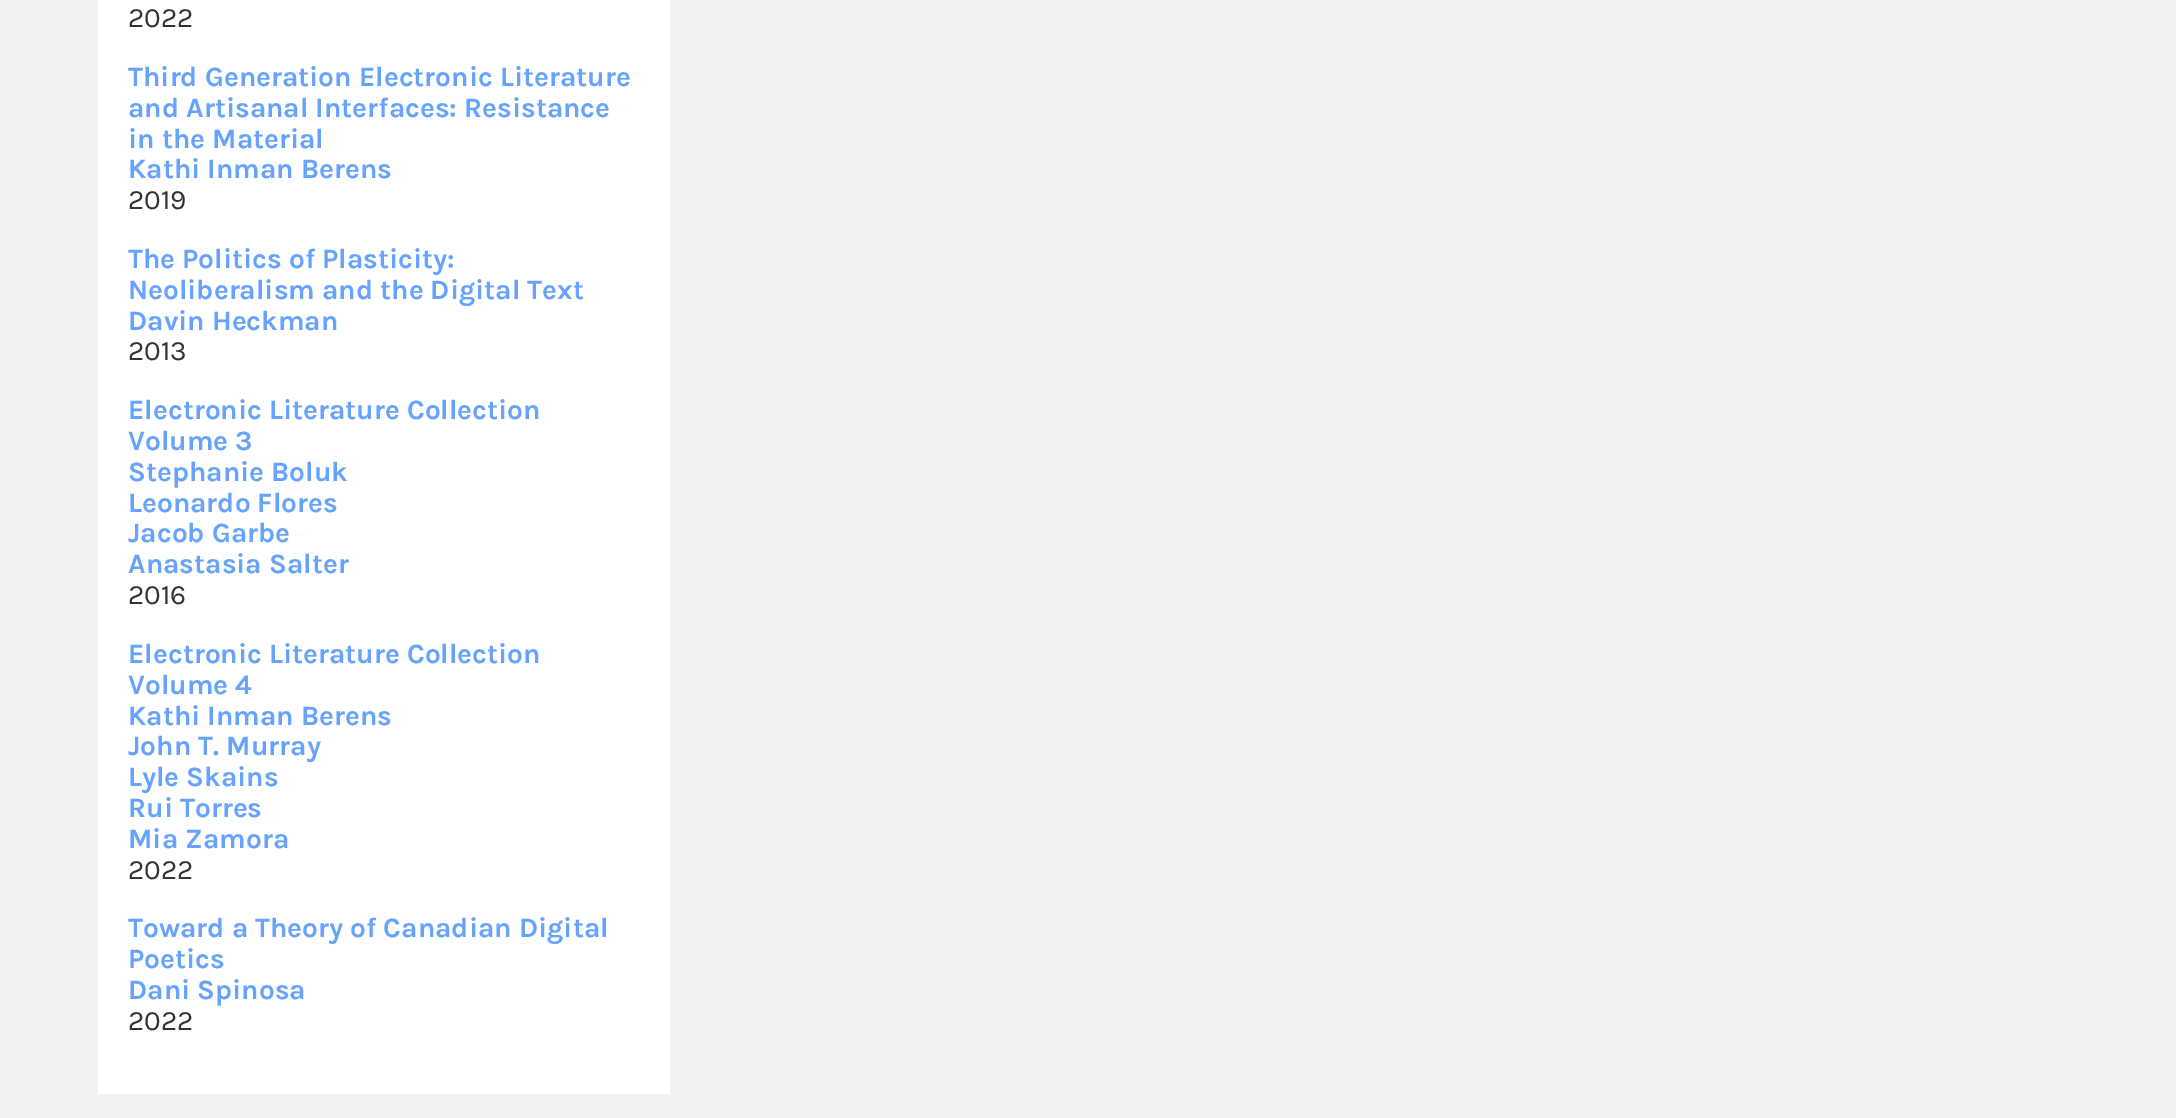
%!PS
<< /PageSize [2176 1118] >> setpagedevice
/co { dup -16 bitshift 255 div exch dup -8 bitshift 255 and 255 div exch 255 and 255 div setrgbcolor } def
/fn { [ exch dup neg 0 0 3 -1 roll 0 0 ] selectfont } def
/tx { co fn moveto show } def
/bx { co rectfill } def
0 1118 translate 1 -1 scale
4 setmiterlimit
0 0 2176 1118 16#F2F2F2 bx
98 0 572 1094 16#FFFFFF bx
(2022) 128 27 /Karla-Regular 28 16#333333 tx
(Third Generation Electronic Literature) 128 86 /Karla-Bold 28 16#66A3FF tx
(and Artisanal Interfaces: Resistance) 128 117 /Karla-Bold 28 16#66A3FF tx
(in the Material) 128 148 /Karla-Bold 28 16#66A3FF tx
(Kathi Inman Berens) 128 178 /Karla-Bold 28 16#66A3FF tx
(2019) 128 209 /Karla-Regular 28 16#333333 tx
(The Politics of Plasticity:) 128 268 /Karla-Bold 28 16#66A3FF tx
(Neoliberalism and the Digital Text) 128 299 /Karla-Bold 28 16#66A3FF tx
(Davin Heckman) 128 330 /Karla-Bold 28 16#66A3FF tx
(2013) 128 360 /Karla-Regular 28 16#333333 tx
(Electronic Literature Collection) 128 419 /Karla-Bold 28 16#66A3FF tx
(Volume 3) 128 450 /Karla-Bold 28 16#66A3FF tx
(Stephanie Boluk) 128 481 /Karla-Bold 28 16#66A3FF tx
(Leonardo Flores) 128 512 /Karla-Bold 28 16#66A3FF tx
(Jacob Garbe) 128 542 /Karla-Bold 28 16#66A3FF tx
(Anastasia Salter) 128 573 /Karla-Bold 28 16#66A3FF tx
(2016) 128 604 /Karla-Regular 28 16#333333 tx
(Electronic Literature Collection) 128 663 /Karla-Bold 28 16#66A3FF tx
(Volume 4) 128 694 /Karla-Bold 28 16#66A3FF tx
(Kathi Inman Berens) 128 725 /Karla-Bold 28 16#66A3FF tx
(John T. Murray) 128 755 /Karla-Bold 28 16#66A3FF tx
(Lyle Skains) 128 786 /Karla-Bold 28 16#66A3FF tx
(Rui Torres) 128 817 /Karla-Bold 28 16#66A3FF tx
(Mia Zamora) 128 848 /Karla-Bold 28 16#66A3FF tx
(2022) 128 879 /Karla-Regular 28 16#333333 tx
(Toward a Theory of Canadian Digital) 128 937 /Karla-Bold 28 16#66A3FF tx
(Poetics) 128 968 /Karla-Bold 28 16#66A3FF tx
(Dani Spinosa) 128 999 /Karla-Bold 28 16#66A3FF tx
(2022) 128 1030 /Karla-Regular 28 16#333333 tx
showpage
